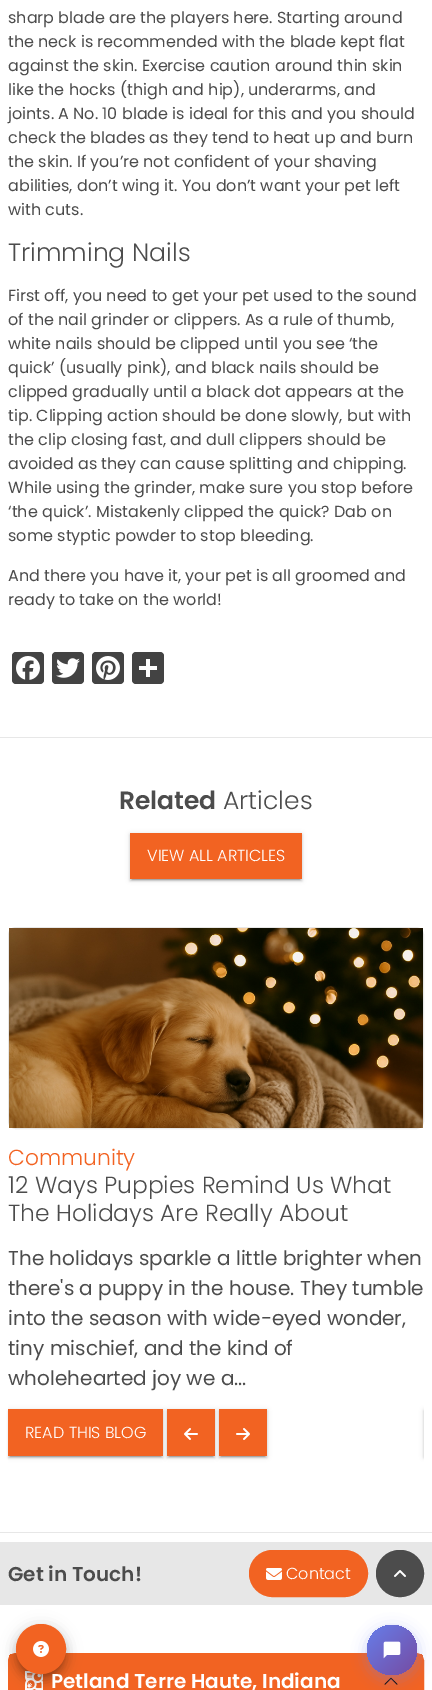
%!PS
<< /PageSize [432 1690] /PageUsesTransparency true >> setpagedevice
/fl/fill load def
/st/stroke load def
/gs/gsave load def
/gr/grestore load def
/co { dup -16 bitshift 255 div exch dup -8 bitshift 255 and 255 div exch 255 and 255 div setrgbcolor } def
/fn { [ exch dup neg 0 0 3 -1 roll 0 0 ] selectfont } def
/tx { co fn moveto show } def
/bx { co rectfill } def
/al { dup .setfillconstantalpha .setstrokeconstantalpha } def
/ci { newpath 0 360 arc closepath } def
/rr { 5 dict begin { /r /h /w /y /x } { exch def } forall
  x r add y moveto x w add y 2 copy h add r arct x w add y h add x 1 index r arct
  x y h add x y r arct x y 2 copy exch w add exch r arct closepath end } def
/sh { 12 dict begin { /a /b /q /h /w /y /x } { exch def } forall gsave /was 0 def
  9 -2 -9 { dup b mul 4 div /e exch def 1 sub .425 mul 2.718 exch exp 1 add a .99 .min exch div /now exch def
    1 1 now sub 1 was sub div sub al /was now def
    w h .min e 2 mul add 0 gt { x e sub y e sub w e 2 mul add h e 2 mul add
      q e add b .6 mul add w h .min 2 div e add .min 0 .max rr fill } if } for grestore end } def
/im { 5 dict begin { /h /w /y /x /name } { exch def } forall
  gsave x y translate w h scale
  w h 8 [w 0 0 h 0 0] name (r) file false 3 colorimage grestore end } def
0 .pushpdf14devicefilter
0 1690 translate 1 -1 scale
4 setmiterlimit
0 0 432 1690 16#FFFFFF bx
16#434343 co
12 652 32 32 4 rr fl
(media/1.raw) 16 656 24 24 im
52 652 32 32 4 rr fl
(media/2.raw) 56 658 24 20 im
92 652 32 32 4 rr fl
(media/3.raw) 96 656 24 24 im
132 652 32 32 4 rr fl
146 659 4 18 16#FFFFFF bx
139 666 18 4 16#FFFFFF bx
0 737 432 1 16#E7E7E7 bx
16#000000 co
130 834 172 46 0 2.5 .12 sh
130 835 172 46 0 1 .14 sh
132 838 168 42 0 .5 .2 sh
130 833 172 46 16#F26322 bx
16#E7E7E7 co
8.5 927.5 415 201 7.5 rr st
(media/4.raw) 9 928 414 200 im
gs
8 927 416 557 rectclip
16#000000 co
8 1410 155 47 0 2.5 .12 sh
gr
16#000000 co
8 1411 155 47 0 1 .14 sh
10 1414 151 43 0 .5 .2 sh
8 1409 155 47 16#F26322 bx
16#000000 co
167 1410 48 47 0 2.5 .12 sh
167 1411 48 47 0 1 .14 sh
169 1414 44 43 0 .5 .2 sh
167 1409 48 47 16#F26322 bx
(media/5.raw) 184 1428 14 12 im
16#000000 co
219 1410 48 47 0 2.5 .12 sh
219 1411 48 47 0 1 .14 sh
221 1414 44 43 0 .5 .2 sh
219 1409 48 47 16#F26322 bx
(media/6.raw) 236 1428 14 12 im
gs
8 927 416 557 rectclip
16#000000 co
424 1410 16 47 0 2.5 .12 sh
424 1411 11 47 0 1 .14 sh
gr
0 1532 432 1 16#E7E7E7 bx
0 1542 432 63 16#E7E7E7 bx
16#F26322 co
249.5 1550.5 118 46 23 rr gs fl gr
st
(media/7.raw) 266 1568 16 12 im
16#4C4C4C co
376.5 1550.5 47 46 23 rr gs fl gr
st
(media/8.raw) 394 1570 12 7 im
16#F26322 co
8.5 1653.5 415 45 7.5 rr st
gs
8 1653 416 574 8 rr clip newpath
9 1654 414 36 16#F26322 bx
gr
(media/9.raw) 25 1671 18 19 im
(media/10.raw) 384 1677 14 8 im
16#000000 co
14 1625 54 54 27 7 .12 sh
15 1631 52 52 26 5 .14 sh
19 1632 44 44 22 2.5 .2 sh
16#667EEA co
367 1629 50 50 25 7.5 .4 sh
gs 392 1650 25 ci clip newpath
<< /ShadingType 2 /ColorSpace /DeviceRGB /Coords [367 1625 417 1675] /Extend [true true] /Function << /FunctionType 2 /Domain [0 1] /C0 [.4 .494 .918] /C1 [.463 .294 .635] /N 1 >> >> shfill gr
(media/12.raw) 383 1641 18 18 im
(sharp blade are the players here. Starting around) 8 23 /Poppins-Regular 16 16#4C4C4C tx
(the neck is recommended with the blade kept flat) 8 47 /Poppins-Regular 16 16#4C4C4C tx
(against the skin. Exercise caution around thin skin) 8 71 /Poppins-Regular 16 16#4C4C4C tx
(like the hocks \(thigh and hip\), underarms, and) 8 95 /Poppins-Regular 16 16#4C4C4C tx
(joints. A No. 10 blade is ideal for this and you should) 8 119 /Poppins-Regular 16 16#4C4C4C tx
(check the blades as they tend to heat up and burn) 8 143 /Poppins-Regular 16 16#4C4C4C tx
(the skin. If you’re not confident of your shaving) 8 167 /Poppins-Regular 16 16#4C4C4C tx
(abilities, don’t wing it. You don’t want your pet left) 8 191 /Poppins-Regular 16 16#4C4C4C tx
(with cuts.) 8 215 /Poppins-Regular 16 16#4C4C4C tx
(Trimming Nails) 8 261 /Poppins-Light 25 16#4C4C4C tx
(First off, you need to get your pet used to the sound) 8 301 /Poppins-Regular 16 16#4C4C4C tx
(of the nail grinder or clippers. As a rule of thumb,) 8 325 /Poppins-Regular 16 16#4C4C4C tx
(white nails should be clipped until you see ‘the) 8 349 /Poppins-Regular 16 16#4C4C4C tx
(quick’ \(usually pink\), and black nails should be) 8 373 /Poppins-Regular 16 16#4C4C4C tx
(clipped gradually until a black dot appears at the) 8 397 /Poppins-Regular 16 16#4C4C4C tx
(tip. Clipping action should be done slowly, but with) 8 421 /Poppins-Regular 16 16#4C4C4C tx
(the clip closing fast, and dull clippers should be) 8 445 /Poppins-Regular 16 16#4C4C4C tx
(avoided as they can cause splitting and chipping.) 8 469 /Poppins-Regular 16 16#4C4C4C tx
(While using the grinder, make sure you stop before) 8 493 /Poppins-Regular 16 16#4C4C4C tx
(‘the quick’. Mistakenly clipped the quick? Dab on) 8 517 /Poppins-Regular 16 16#4C4C4C tx
(some styptic powder to stop bleeding.) 8 541 /Poppins-Regular 16 16#4C4C4C tx
(And there you have it, your pet is all groomed and) 8 581 /Poppins-Regular 16 16#4C4C4C tx
(ready to take on the world!) 8 605 /Poppins-Regular 16 16#4C4C4C tx
(Related) 119 809 /Poppins-SemiBold 25 16#4C4C4C tx
(Articles) 223 809 /Poppins-Light 25 16#4C4C4C tx
(VIEW ALL ARTICLES) 147 861 /Poppins-Light 16 16#FFFFFF tx
(Community) 8 1165 /Poppins-Light 21.75 16#F26322 tx
(12 Ways Puppies Remind Us What) 8 1193 /Poppins-Light 23.4 16#4C4C4C tx
(The Holidays Are Really About) 8 1221 /Poppins-Light 23.4 16#4C4C4C tx
(The holidays sparkle a little brighter when) 8 1265 /Poppins-Regular 20 16#4C4C4C tx
(there's a puppy in the house. They tumble) 8 1295 /Poppins-Regular 20 16#4C4C4C tx
(into the season with wide-eyed wonder,) 8 1325 /Poppins-Regular 20 16#4C4C4C tx
(tiny mischief, and the kind of) 8 1355 /Poppins-Regular 20 16#4C4C4C tx
(wholehearted joy we a...) 8 1385 /Poppins-Regular 20 16#4C4C4C tx
(READ THIS BLOG) 25 1438 /Poppins-Light 16 16#FFFFFF tx
(Get in Touch!) 8 1581 /Poppins-SemiBold 20 16#4C4C4C tx
(Contact) 286 1579 /Poppins-Light 16 16#FFFFFF tx
(Petland Terre Haute, Indiana) 51 1688 /Poppins-SemiBold 20 16#FFFFFF tx
16#F26322 co
41 1649 24.5 ci gs fl gr
st
(media/11.raw) 33 1641 16 16 im
.poppdf14devicefilter showpage
